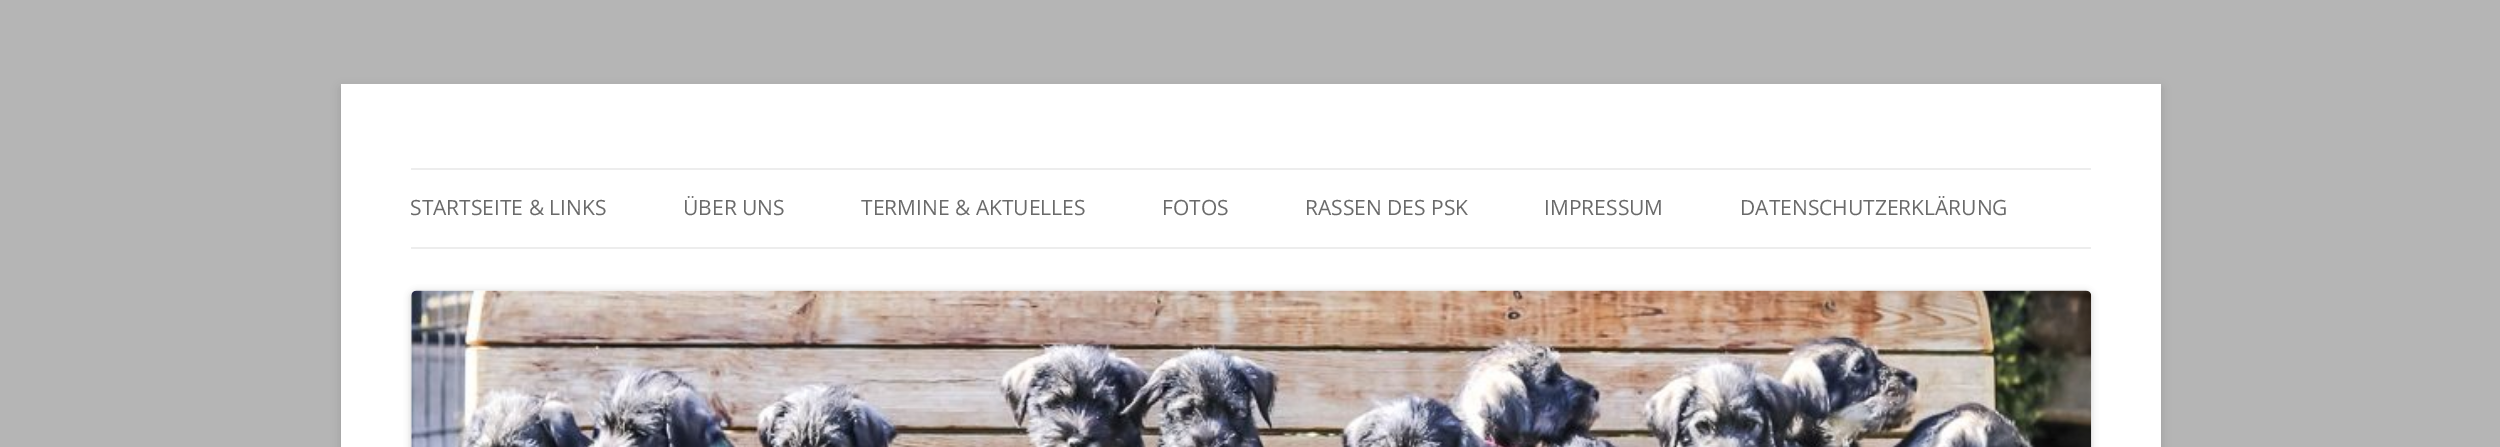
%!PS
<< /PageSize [2500 447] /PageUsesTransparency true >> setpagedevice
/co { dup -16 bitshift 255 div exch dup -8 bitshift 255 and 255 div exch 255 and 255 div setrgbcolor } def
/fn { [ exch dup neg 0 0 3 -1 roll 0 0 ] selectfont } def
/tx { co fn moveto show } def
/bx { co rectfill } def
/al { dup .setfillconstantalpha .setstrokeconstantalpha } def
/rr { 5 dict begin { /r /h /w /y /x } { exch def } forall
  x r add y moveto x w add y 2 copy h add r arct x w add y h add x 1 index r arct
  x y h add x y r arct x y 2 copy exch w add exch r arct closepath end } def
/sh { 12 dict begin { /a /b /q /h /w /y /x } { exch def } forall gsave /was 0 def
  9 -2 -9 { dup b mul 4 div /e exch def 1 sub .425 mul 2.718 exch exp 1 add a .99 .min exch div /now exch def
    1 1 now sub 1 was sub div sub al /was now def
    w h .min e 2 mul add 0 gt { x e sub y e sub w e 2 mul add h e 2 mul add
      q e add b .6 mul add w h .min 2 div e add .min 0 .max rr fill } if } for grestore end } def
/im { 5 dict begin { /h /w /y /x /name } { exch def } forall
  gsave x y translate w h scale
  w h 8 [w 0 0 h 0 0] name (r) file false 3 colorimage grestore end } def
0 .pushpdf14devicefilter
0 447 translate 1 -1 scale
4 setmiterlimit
0 0 2500 447 16#B5B5B5 bx
16#646464 co
341 88 1820 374 0 5 .3 sh
341 84 1820 363 16#FFFFFF bx
411 168 1680 2 16#EDEDED bx
411 247 1680 2 16#EDEDED bx
16#000000 co
411 292 1680 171 5 3.5 .2 sh
(media/1.raw) 411 290 1681 157 im
(STARTSEITE & LINKS) 410 215 /OpenSans-Regular 21 16#6A6A6A tx
(ÜBER UNS) 683 215 /OpenSans-Regular 21 16#6A6A6A tx
(TERMINE & AKTUELLES) 861 215 /OpenSans-Regular 21 16#6A6A6A tx
(FOTOS) 1162 215 /OpenSans-Regular 21 16#6A6A6A tx
(RASSEN DES PSK) 1305 215 /OpenSans-Regular 21 16#6A6A6A tx
(IMPRESSUM) 1544 215 /OpenSans-Regular 21 16#6A6A6A tx
(DATENSCHUTZERKLÄRUNG) 1740 215 /OpenSans-Regular 21 16#6A6A6A tx
.poppdf14devicefilter showpage
